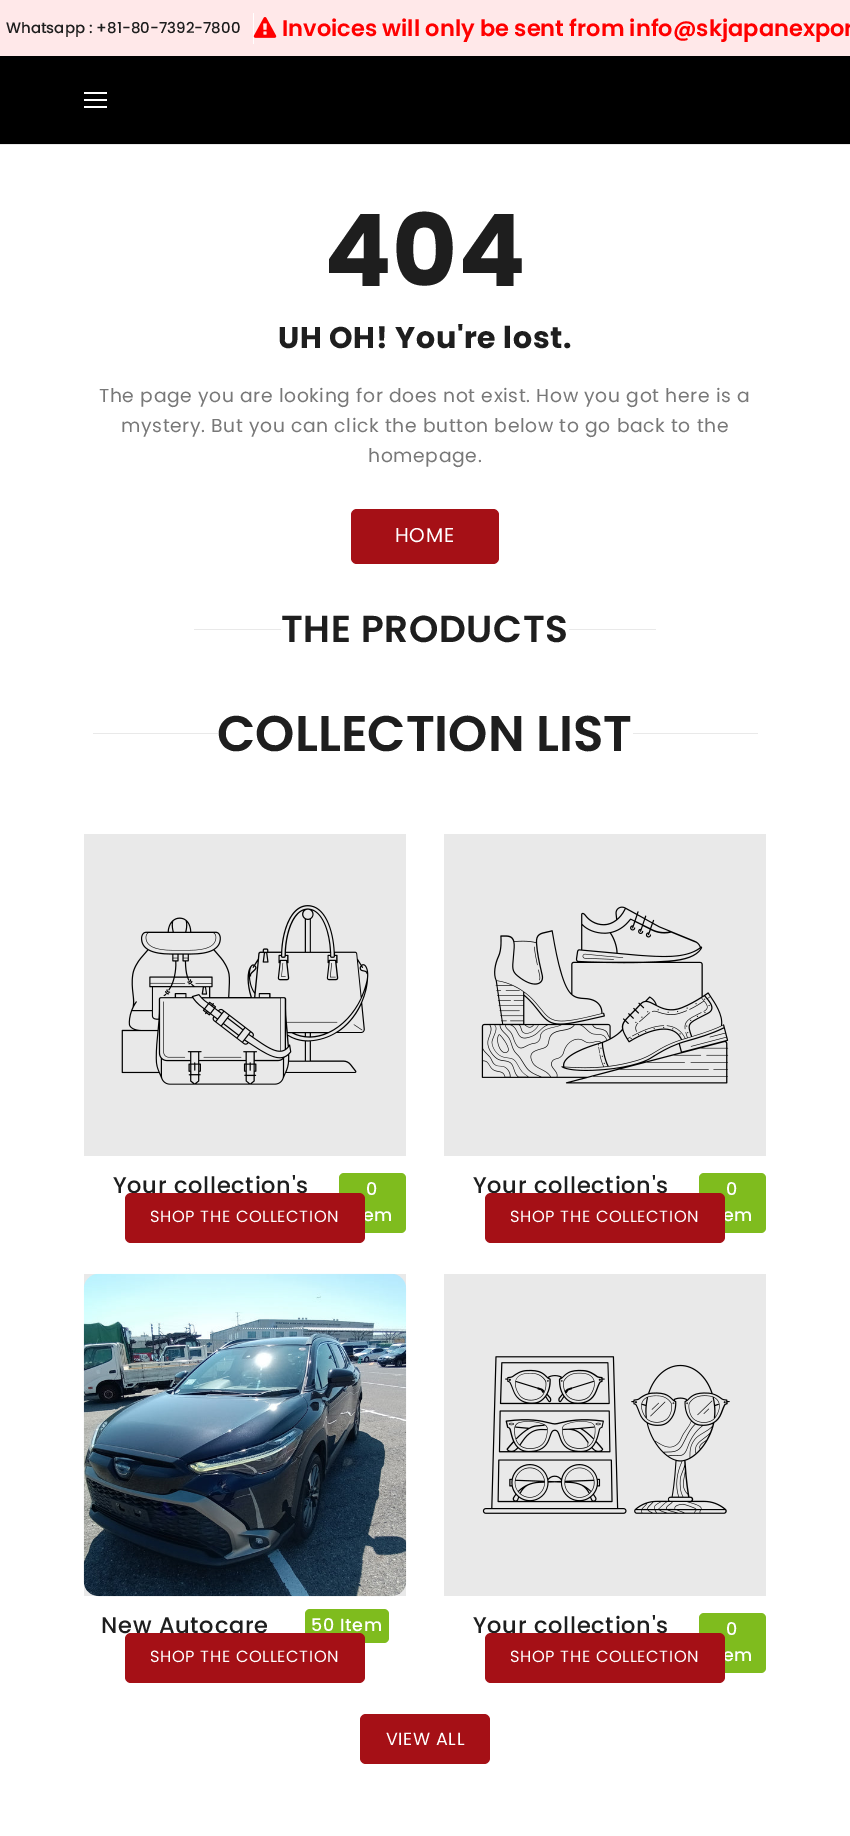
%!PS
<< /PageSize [850 1836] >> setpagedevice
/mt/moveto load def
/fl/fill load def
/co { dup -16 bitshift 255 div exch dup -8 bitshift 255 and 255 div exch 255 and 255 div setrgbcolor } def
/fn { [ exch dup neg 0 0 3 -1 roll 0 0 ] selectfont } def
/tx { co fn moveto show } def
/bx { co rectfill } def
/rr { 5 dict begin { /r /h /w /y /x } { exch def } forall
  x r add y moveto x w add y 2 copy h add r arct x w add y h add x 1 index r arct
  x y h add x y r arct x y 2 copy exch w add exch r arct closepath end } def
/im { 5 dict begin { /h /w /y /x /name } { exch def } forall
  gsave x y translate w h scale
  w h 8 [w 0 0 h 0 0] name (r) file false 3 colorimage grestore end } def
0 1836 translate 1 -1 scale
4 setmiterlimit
0 0 850 1836 16#FFFFFF bx
0 0 850 56 16#FFE8E9 bx
253 13 1 31 16#FFFFFF bx
(media/1.raw) 253 17 24 21 im
0 56 850 88 16#000000 bx
0 144 850 1 16#E9E9E9 bx
84 92 23 2 16#FFFFFF bx
84 99 23 2 16#FFFFFF bx
84 106 23 2 16#FFFFFF bx
16#A51016 co
351 509 148 55 6 rr fl
194 629 87 1 16#E9E9E9 bx
569 629 87 1 16#E9E9E9 bx
93 733 125 1 16#E9E9E9 bx
633 733 125 1 16#E9E9E9 bx
84 834 322 322 16#E9E9E9 bx
(media/2.raw) 121 905 248 180 im
16#7FBC1E co
339 1173 67 60 5 rr fl
444 834 322 322 16#E9E9E9 bx
(media/3.raw) 481 906 248 178 im
16#7FBC1E co
699 1173 67 60 5 rr fl
84 1274 322 322 16#E9E9E9 bx
(media/4.raw) 83 1273 324 324 im
16#7FBC1E co
305 1609 84 34 5 rr fl
444 1274 322 322 16#E9E9E9 bx
(media/5.raw) 482 1356 248 158 im
16#7FBC1E co
699 1613 67 60 5 rr fl
16#A51016 co
360 1714 130 50 6 rr fl
(Whatsapp : +81-80-7392-7800) 6 33 /Poppins-Medium 15 16#1E1E1E tx
(Invoices will only be sent from info@skjapanexpor) 282 36 /Poppins-SemiBold 22.5 16#FF0000 tx
/Poppins-Bold 100 fn
16#1E1E1E co
324 286 mt .75 0 (404) ashow
/Poppins-Bold 30 fn
278 348 mt .62 0 (UH OH! You're lost.) ashow
/Poppins-Regular 18.75 fn
16#787878 co
99 402 mt .62 0 (The page you are looking for does not exist. How you got here is a) ashow
121 432 mt .62 0 (mystery. But you can click the button below to go back to the) ashow
368 462 mt .62 0 (homepage.) ashow
/Poppins-Regular 20 fn
16#FFFFFF co
395 542 mt .62 0 (HOME) ashow
/Poppins-SemiBold 37.5 fn
16#1E1E1E co
281 642 mt .62 0 (THE PRODUCTS) ashow
(COLLECTION LIST) 217 751 /Poppins-SemiBold 50 16#1E1E1E tx
/Poppins-Medium 22.5 fn
113 1193 mt .75 0 (Your collection's) ashow
/Poppins-Medium 17.5 fn
16#FFFFFF co
366 1195 mt .62 0 (0) ashow
363 1221 mt .62 0 (em) ashow
16#A51016 co
125 1193 240 50 6 rr fl
/Poppins-Regular 16.25 fn
16#FFFFFF co
150 1222 mt .62 0 (SHOP THE COLLECTION) ashow
/Poppins-Medium 22.5 fn
16#1E1E1E co
473 1193 mt .75 0 (Your collection's) ashow
/Poppins-Medium 17.5 fn
16#FFFFFF co
726 1195 mt .62 0 (0) ashow
723 1221 mt .62 0 (em) ashow
16#A51016 co
485 1193 240 50 6 rr fl
/Poppins-Regular 16.25 fn
16#FFFFFF co
510 1222 mt .62 0 (SHOP THE COLLECTION) ashow
/Poppins-Medium 22.5 fn
16#1E1E1E co
101 1633 mt .75 0 (New Autocare) ashow
/Poppins-Medium 17.5 fn
16#FFFFFF co
311 1631 mt .62 0 (50 Item) ashow
16#A51016 co
125 1633 240 50 6 rr fl
/Poppins-Regular 16.25 fn
16#FFFFFF co
150 1662 mt .62 0 (SHOP THE COLLECTION) ashow
/Poppins-Medium 22.5 fn
16#1E1E1E co
473 1633 mt .75 0 (Your collection's) ashow
/Poppins-Medium 17.5 fn
16#FFFFFF co
726 1635 mt .62 0 (0) ashow
723 1661 mt .62 0 (em) ashow
16#A51016 co
485 1633 240 50 6 rr fl
/Poppins-Regular 16.25 fn
16#FFFFFF co
510 1662 mt .62 0 (SHOP THE COLLECTION) ashow
/Poppins-Regular 17.5 fn
386 1745 mt .62 0 (VIEW ALL) ashow
showpage
